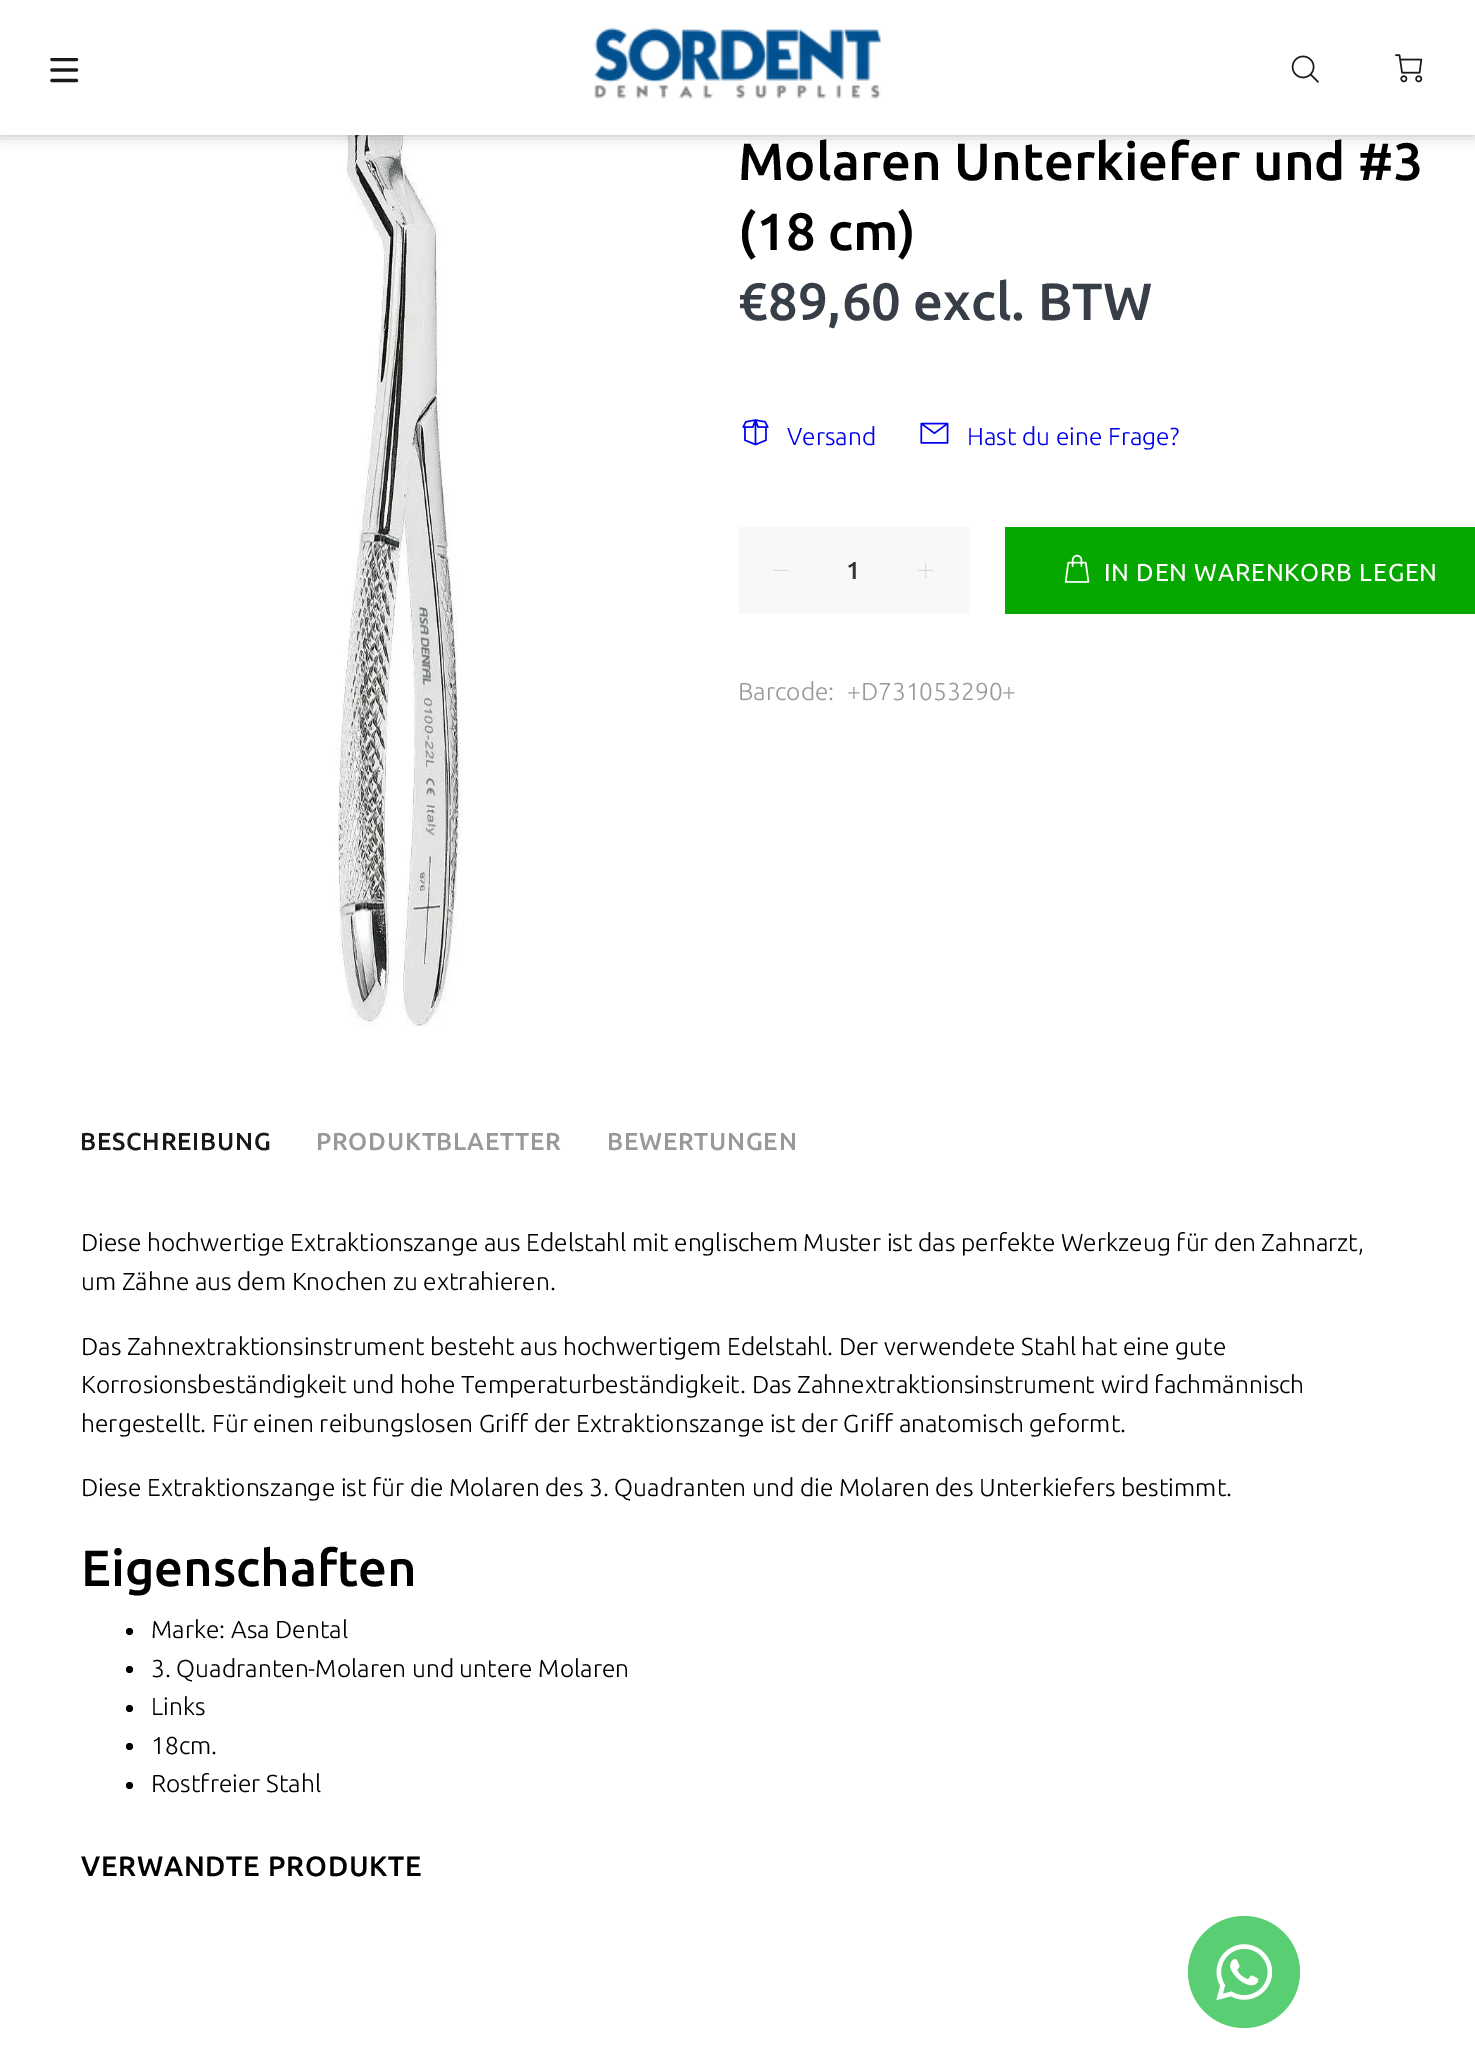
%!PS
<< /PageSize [1475 2055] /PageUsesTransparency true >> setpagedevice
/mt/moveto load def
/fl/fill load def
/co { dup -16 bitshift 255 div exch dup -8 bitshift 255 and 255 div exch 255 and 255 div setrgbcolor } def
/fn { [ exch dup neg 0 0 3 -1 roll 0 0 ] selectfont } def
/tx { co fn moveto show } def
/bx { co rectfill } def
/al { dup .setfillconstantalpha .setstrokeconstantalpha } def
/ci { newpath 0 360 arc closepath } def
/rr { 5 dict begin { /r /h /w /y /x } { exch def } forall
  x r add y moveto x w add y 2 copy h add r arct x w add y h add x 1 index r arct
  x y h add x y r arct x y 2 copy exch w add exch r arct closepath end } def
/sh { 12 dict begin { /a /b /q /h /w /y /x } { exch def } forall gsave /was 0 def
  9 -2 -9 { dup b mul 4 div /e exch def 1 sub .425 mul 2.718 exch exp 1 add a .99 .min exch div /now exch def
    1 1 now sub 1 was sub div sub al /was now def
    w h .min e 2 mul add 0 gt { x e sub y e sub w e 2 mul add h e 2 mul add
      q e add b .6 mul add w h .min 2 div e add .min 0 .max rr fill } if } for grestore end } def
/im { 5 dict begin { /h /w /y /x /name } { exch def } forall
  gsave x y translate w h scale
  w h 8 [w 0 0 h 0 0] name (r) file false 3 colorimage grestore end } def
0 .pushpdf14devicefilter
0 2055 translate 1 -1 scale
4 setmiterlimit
0 0 1475 2055 16#FFFFFF bx
(media/5.raw) 288 135 175 892 im
16#000000 co
0 0 1475 135 0 7 .3 sh
0 0 1475 135 16#FFFFFF bx
(media/1.raw) 50 58 29 25 im
(media/2.raw) 594 27 288 72 im
(media/3.raw) 1291 55 28 28 im
(media/4.raw) 1395 54 28 29 im
(media/6.raw) 742 419 27 27 im
(media/7.raw) 920 422 29 22 im
739 527 231 87 16#F7F8FA bx
(media/8.raw) 773 569 16 2 im
(media/9.raw) 918 562 16 17 im
1005 527 470 87 16#06A800 bx
(media/10.raw) 1064 554 26 29 im
16#000000 co
129.5 1631.5 3.5 ci fl
129.5 1669.5 3.5 ci fl
129.5 1708.5 3.5 ci fl
129.5 1746.5 3.5 ci fl
129.5 1785.5 3.5 ci fl
16#59CE72 co
1244 1972 56 ci fl
(media/11.raw) 1216 1944 56 56 im
/Ubuntu-Medium 52.5 fn
16#000000 co
738 180 mt .05 0 (Molaren Unterkiefer und #3) ashow
738 250 mt .05 0 (\(18 cm\)) ashow
(€89,60 excl. BTW) 738 320 /Ubuntu-Medium 52.5 16#373E48 tx
(Versand) 787 445 /Ubuntu-Light 24.5 16#0000EE tx
(Hast du eine Frage?) 967 445 /Ubuntu-Light 24.5 16#0000EE tx
(1) 846 579 /Ubuntu-Medium 24.5 16#333333 tx
/Ubuntu-Regular 24.5 fn
16#FFFFFF co
1104 581 mt .75 0 (IN DEN WARENKORB LEGEN) ashow
(Barcode:) 738 700 /Ubuntu-Light 24.5 16#999999 tx
(+D731053290+) 847 700 /Ubuntu-Light 24.5 16#999999 tx
/Ubuntu-Medium 24.5 fn
16#191919 co
80 1150 mt .75 0 (BESCHREIBUNG) ashow
16#999999 co
316 1150 mt .75 0 (PRODUKTBLAETTER) ashow
607 1150 mt .75 0 (BEWERTUNGEN) ashow
(Diese hochwertige Extraktionszange aus Edelstahl mit englischem Muster ist das perfekte Werkzeug für den Zahnarzt,) 81 1251 /Ubuntu-Light 24.5 16#000000 tx
(um Zähne aus dem Knochen zu extrahieren.) 81 1290 /Ubuntu-Light 24.5 16#000000 tx
(Das Zahnextraktionsinstrument besteht aus hochwertigem Edelstahl. Der verwendete Stahl hat eine gute) 81 1355 /Ubuntu-Light 24.5 16#000000 tx
(Korrosionsbeständigkeit und hohe Temperaturbeständigkeit. Das Zahnextraktionsinstrument wird fachmännisch) 81 1393 /Ubuntu-Light 24.5 16#000000 tx
(hergestellt. Für einen reibungslosen Griff der Extraktionszange ist der Griff anatomisch geformt.) 81 1432 /Ubuntu-Light 24.5 16#000000 tx
(Diese Extraktionszange ist für die Molaren des 3. Quadranten und die Molaren des Unterkiefers bestimmt.) 81 1496 /Ubuntu-Light 24.5 16#000000 tx
(Eigenschaften) 81 1586 /Ubuntu-Medium 50.75 16#000000 tx
(Marke: Asa Dental) 151 1638 /Ubuntu-Light 24.5 16#000000 tx
(3. Quadranten-Molaren und untere Molaren) 151 1677 /Ubuntu-Light 24.5 16#000000 tx
(Links) 151 1715 /Ubuntu-Light 24.5 16#000000 tx
(18cm.) 151 1754 /Ubuntu-Light 24.5 16#000000 tx
(Rostfreier Stahl) 151 1792 /Ubuntu-Light 24.5 16#000000 tx
/Ubuntu-Medium 28 fn
81 1876 mt .8 0 (VERWANDTE PRODUKTE) ashow
.poppdf14devicefilter showpage
